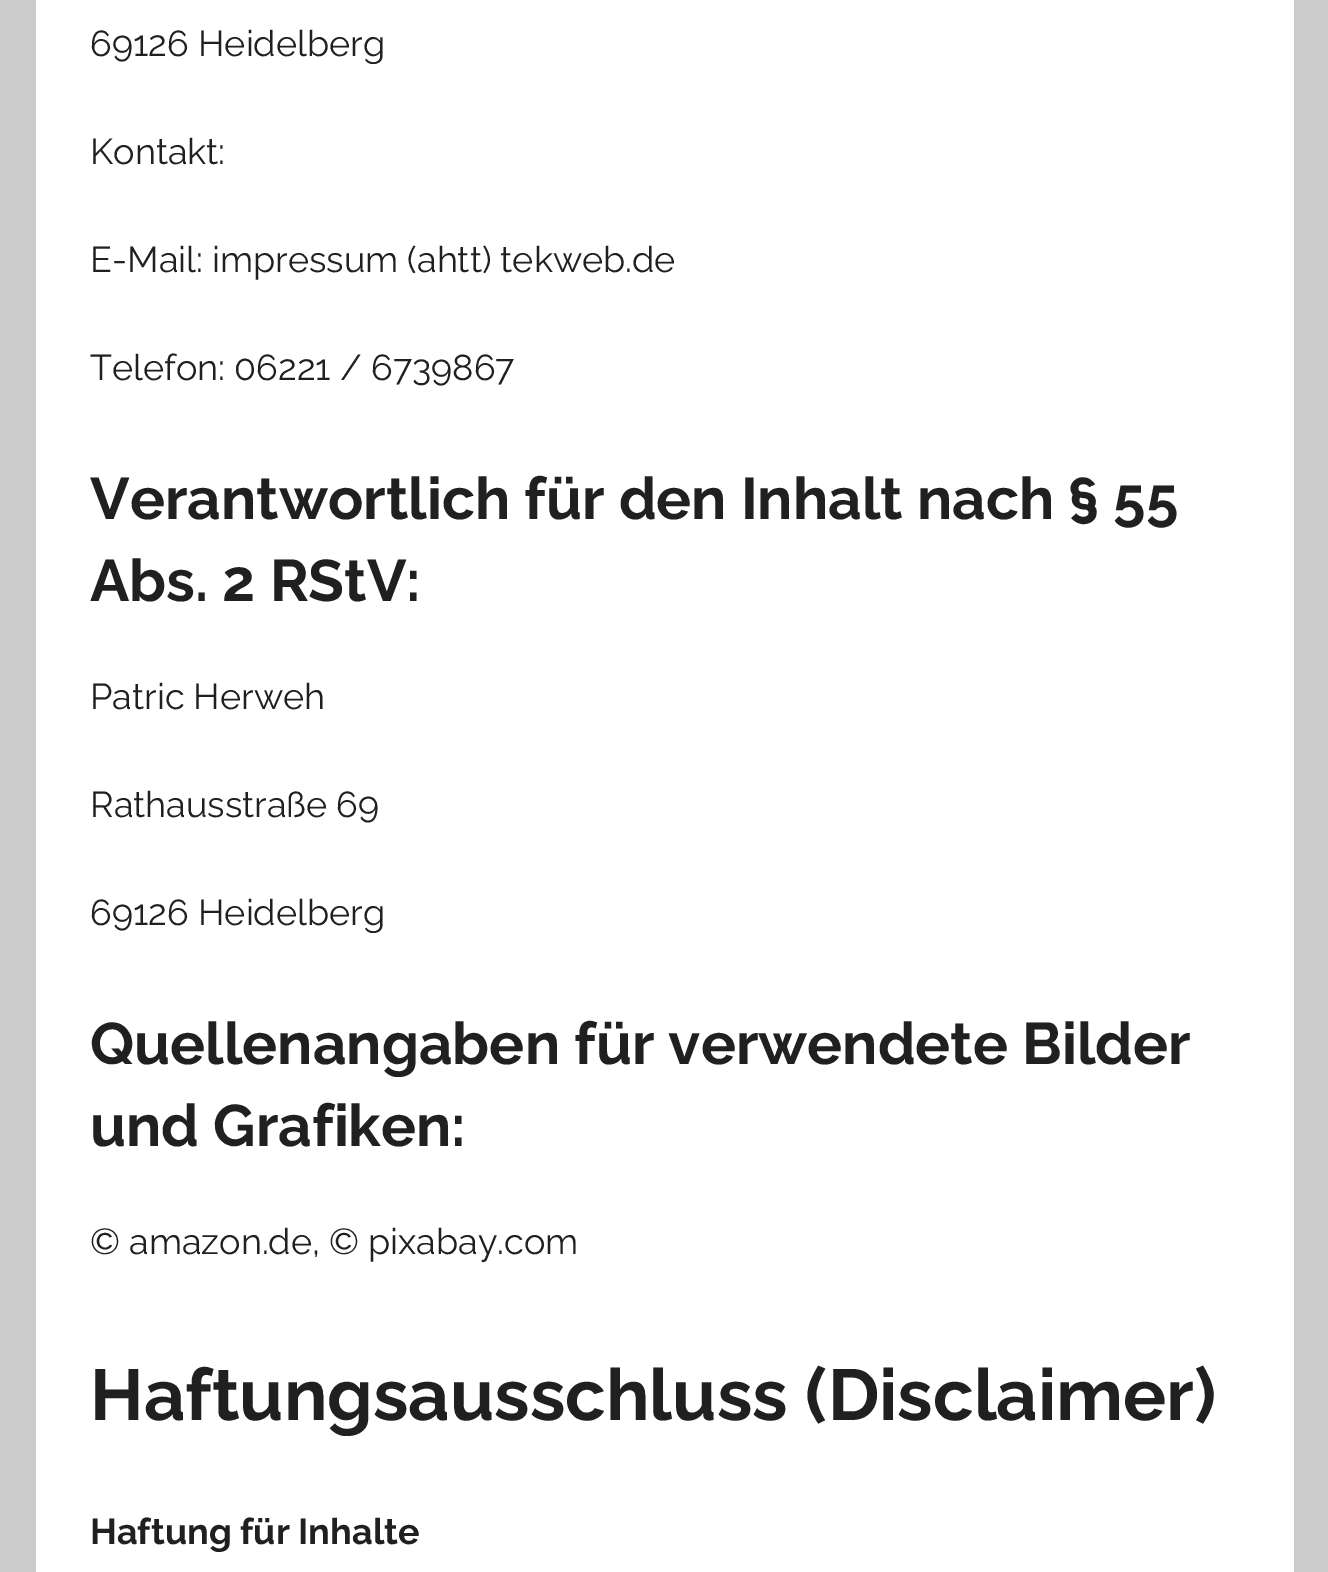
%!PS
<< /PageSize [1328 1572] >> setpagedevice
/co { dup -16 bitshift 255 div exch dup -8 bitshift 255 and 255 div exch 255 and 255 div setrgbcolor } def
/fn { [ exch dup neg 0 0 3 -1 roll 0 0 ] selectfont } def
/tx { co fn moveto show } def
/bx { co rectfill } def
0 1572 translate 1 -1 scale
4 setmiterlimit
0 0 1328 1572 16#CCCCCC bx
36 0 1258 1572 16#FFFFFF bx
(69126 Heidelberg) 90 56 /Raleway-Regular 36 16#202020 tx
(Kontakt:) 90 164 /Raleway-Regular 36 16#202020 tx
(E-Mail: impressum \(ahtt\) tekweb.de) 90 272 /Raleway-Regular 36 16#202020 tx
(Telefon: 06221 / 6739867) 90 380 /Raleway-Regular 36 16#202020 tx
(Verantwortlich für den Inhalt nach § 55) 90 519 /Raleway-Bold 58.5 16#202020 tx
(Abs. 2 RStV:) 90 601 /Raleway-Bold 58.5 16#202020 tx
(Patric Herweh) 90 709 /Raleway-Regular 36 16#202020 tx
(Rathausstraße 69) 90 817 /Raleway-Regular 36 16#202020 tx
(69126 Heidelberg) 90 925 /Raleway-Regular 36 16#202020 tx
(Quellenangaben für verwendete Bilder) 90 1064 /Raleway-Bold 58.5 16#202020 tx
(und Grafiken:) 90 1146 /Raleway-Bold 58.5 16#202020 tx
(© amazon.de, © pixabay.com) 90 1254 /Raleway-Regular 36 16#202020 tx
(Haftungsausschluss \(Disclaimer\)) 90 1420 /Raleway-Bold 72 16#202020 tx
(Haftung für Inhalte) 90 1544 /Raleway-Bold 36 16#202020 tx
showpage
